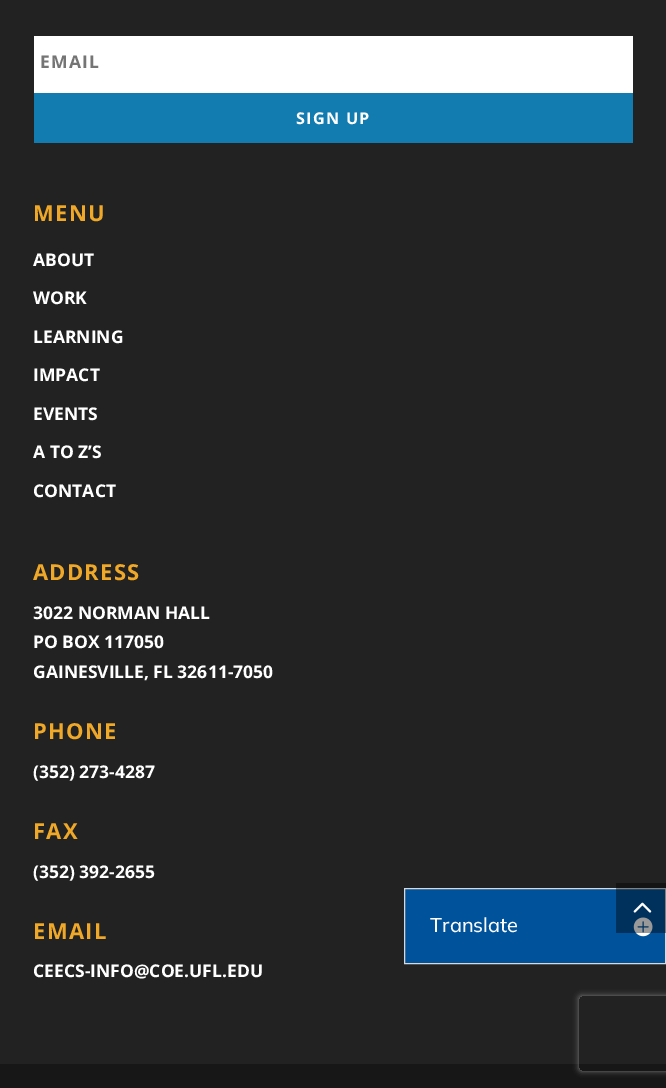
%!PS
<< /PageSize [666 1088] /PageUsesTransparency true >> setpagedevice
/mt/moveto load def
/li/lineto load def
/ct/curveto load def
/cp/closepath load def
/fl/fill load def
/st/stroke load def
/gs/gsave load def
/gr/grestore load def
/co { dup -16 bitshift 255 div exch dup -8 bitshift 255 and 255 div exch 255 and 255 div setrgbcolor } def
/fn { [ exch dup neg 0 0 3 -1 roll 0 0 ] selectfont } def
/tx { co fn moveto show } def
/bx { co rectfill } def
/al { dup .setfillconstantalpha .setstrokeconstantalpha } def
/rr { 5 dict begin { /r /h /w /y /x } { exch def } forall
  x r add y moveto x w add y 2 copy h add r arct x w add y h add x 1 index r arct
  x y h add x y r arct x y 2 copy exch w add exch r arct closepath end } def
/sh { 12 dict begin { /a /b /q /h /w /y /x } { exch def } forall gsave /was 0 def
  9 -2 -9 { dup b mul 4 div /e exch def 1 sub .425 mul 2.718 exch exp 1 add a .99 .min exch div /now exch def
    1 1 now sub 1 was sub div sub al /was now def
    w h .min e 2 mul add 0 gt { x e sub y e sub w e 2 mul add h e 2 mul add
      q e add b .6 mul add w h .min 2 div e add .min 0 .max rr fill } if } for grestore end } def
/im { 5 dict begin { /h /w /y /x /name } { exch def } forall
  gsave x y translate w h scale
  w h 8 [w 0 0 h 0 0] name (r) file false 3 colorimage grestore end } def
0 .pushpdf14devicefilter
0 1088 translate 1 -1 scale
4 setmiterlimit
0 0 666 1088 16#222222 bx
34 36 599 57 16#FFFFFF bx
34 93 599 50 16#127BAF bx
0 1064 666 24 16#171717 bx
16#00529B co
404.5 888.5 mt 665.5 888.5 li 665.5 963.5 li 404.5 963.5 li cp gs fl gr
16#D9D9D9 co
st
(media/1.raw) 633 917 20 20 im
0.4 al
616 883 50 50 16#000000 bx
1 al
(media/2.raw) 633 902 19 11 im
gs
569 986 mt 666 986 li 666 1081 li 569 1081 li cp 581.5 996 mt 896.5 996 li 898 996 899 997 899 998.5 ct 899 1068.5 li 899 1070 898 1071 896.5 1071 ct 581.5 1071 li 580 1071 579 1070 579 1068.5 ct 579 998.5 li 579 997 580 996 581.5 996 ct cp eoclip newpath
16#808080 co
579 996 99 75 2.5 3 1 sh
gr
/OpenSans-Bold 17.5 fn
16#757575 co
40 68 mt 1.25 0 (EMAIL) ashow
/OpenSans-Bold 16.25 fn
16#FFFFFF co
296 124 mt 1.25 0 (SIGN UP) ashow
/OpenSans-Bold 22 fn
16#EFA827 co
33 221 mt 1.25 0 (MENU) ashow
(ABOUT) 33 266 /OpenSans-Bold 17.5 16#FFFFFF tx
(WORK) 33 304 /OpenSans-Bold 17.5 16#FFFFFF tx
(LEARNING) 33 343 /OpenSans-Bold 17.5 16#FFFFFF tx
(IMPACT) 33 381 /OpenSans-Bold 17.5 16#FFFFFF tx
(EVENTS) 33 420 /OpenSans-Bold 17.5 16#FFFFFF tx
(A TO Z’S) 33 458 /OpenSans-Bold 17.5 16#FFFFFF tx
(CONTACT) 33 497 /OpenSans-Bold 17.5 16#FFFFFF tx
/OpenSans-Bold 22 fn
16#EFA827 co
33 580 mt 1.25 0 (ADDRESS) ashow
(3022 NORMAN HALL) 33 619 /OpenSans-Bold 17.5 16#FFFFFF tx
(PO BOX 117050) 33 648 /OpenSans-Bold 17.5 16#FFFFFF tx
(GAINESVILLE, FL 32611-7050) 33 678 /OpenSans-Bold 17.5 16#FFFFFF tx
/OpenSans-Bold 22 fn
16#EFA827 co
33 739 mt 1.25 0 (PHONE) ashow
(\(352\) 273-4287) 33 778 /OpenSans-Bold 17.5 16#FFFFFF tx
/OpenSans-Bold 22 fn
16#EFA827 co
33 839 mt 1.25 0 (FAX) ashow
(\(352\) 392-2655) 33 878 /OpenSans-Bold 17.5 16#FFFFFF tx
/OpenSans-Bold 22 fn
16#EFA827 co
33 939 mt 1.25 0 (EMAIL) ashow
(CEECS-INFO@COE.UFL.EDU) 33 977 /OpenSans-Bold 17.5 16#FFFFFF tx
(Translate) 430 932 /Mulish-Medium 20 16#FFFFFF tx
.poppdf14devicefilter showpage
